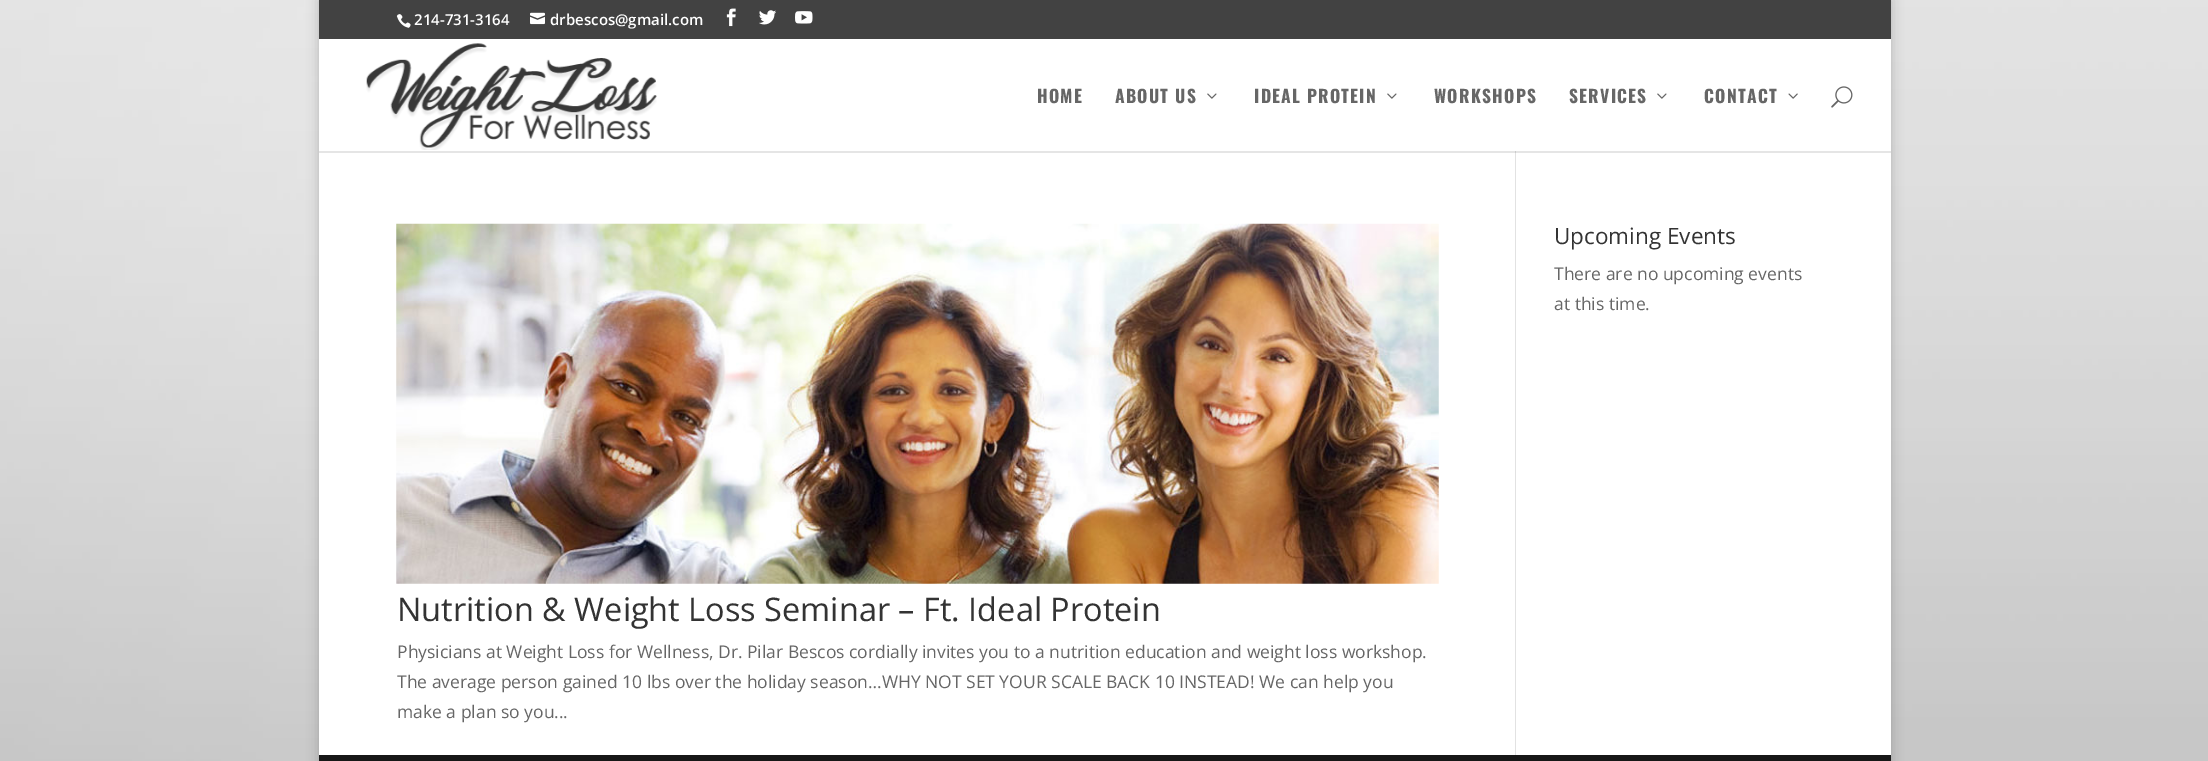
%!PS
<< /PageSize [2208 761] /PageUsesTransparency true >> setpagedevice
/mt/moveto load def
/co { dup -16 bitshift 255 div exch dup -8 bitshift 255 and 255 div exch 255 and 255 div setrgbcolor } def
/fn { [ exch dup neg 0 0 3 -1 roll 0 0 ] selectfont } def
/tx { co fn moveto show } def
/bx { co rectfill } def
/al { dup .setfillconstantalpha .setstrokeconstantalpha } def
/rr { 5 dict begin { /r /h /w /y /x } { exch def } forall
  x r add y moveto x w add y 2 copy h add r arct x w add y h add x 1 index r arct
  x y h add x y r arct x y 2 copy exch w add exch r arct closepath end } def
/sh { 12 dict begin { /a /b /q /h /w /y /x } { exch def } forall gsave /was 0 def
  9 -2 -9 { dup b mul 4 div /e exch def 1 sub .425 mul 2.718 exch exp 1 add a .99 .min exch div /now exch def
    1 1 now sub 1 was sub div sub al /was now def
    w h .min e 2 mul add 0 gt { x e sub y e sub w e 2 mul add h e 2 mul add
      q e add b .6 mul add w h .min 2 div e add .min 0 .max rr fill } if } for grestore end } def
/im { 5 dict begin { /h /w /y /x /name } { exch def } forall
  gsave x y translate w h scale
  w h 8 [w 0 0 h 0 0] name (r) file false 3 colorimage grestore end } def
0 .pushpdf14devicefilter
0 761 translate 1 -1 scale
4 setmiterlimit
0 0 2208 761 16#FFFFFF bx
(media/1.raw) 0 0 2208 761 im
16#000000 co
319 0 1572 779 0 6 .2 sh
319 0 1572 39 16#424242 bx
(media/2.raw) 396 14 15 14 im
(media/3.raw) 530 12 15 13 im
(media/4.raw) 726 8 10 19 im
(media/5.raw) 759 10 17 15 im
(media/6.raw) 795 11 18 13 im
319 39 1572 716 16#FFFFFF bx
1515 151 1 604 16#E2E2E2 bx
0.1 al
319 151 1572 2 16#000000 bx
1 al
(media/7.raw) 366 43 291 107 im
(media/8.raw) 1207 93 10 6 im
(media/8.raw) 1387 93 10 6 im
(media/8.raw) 1657 93 10 6 im
(media/9.raw) 1788 93 10 6 im
(media/10.raw) 1831 86 22 22 im
(media/11.raw) 396 223 1043 361 im
319 755 1572 6 16#171717 bx
(214-731-3164) 414 25 /OpenSans-SemiBold 15 16#FFFFFF tx
(drbescos@gmail.com) 550 25 /OpenSans-SemiBold 15 16#FFFFFF tx
/Oswald-Bold 17.5 fn
16#666666 co
1037 103 mt 1.25 0 (HOME) ashow
1115 103 mt 1.25 0 (ABOUT US) ashow
1254 103 mt 1.25 0 (IDEAL PROTEIN) ashow
1434 103 mt 1.25 0 (WORKSHOPS) ashow
1569 103 mt 1.25 0 (SERVICES) ashow
1704 103 mt 1.25 0 (CONTACT) ashow
(Upcoming Events) 1554 244 /OpenSans-Regular 22.5 16#333333 tx
(There are no upcoming events) 1554 280 /OpenSans-Regular 17.5 16#666666 tx
(at this time.) 1554 310 /OpenSans-Regular 17.5 16#666666 tx
(Nutrition & Weight Loss Seminar – Ft. Ideal Protein) 397 621 /OpenSans-Regular 32.5 16#333333 tx
(Physicians at Weight Loss for Wellness, Dr. Pilar Bescos cordially invites you to a nutrition education and weight loss workshop.) 397 658 /OpenSans-Regular 17.5 16#666666 tx
(The average person gained 10 lbs over the holiday season…WHY NOT SET YOUR SCALE BACK 10 INSTEAD! We can help you) 397 688 /OpenSans-Regular 17.5 16#666666 tx
(make a plan so you...) 397 718 /OpenSans-Regular 17.5 16#666666 tx
.poppdf14devicefilter showpage
